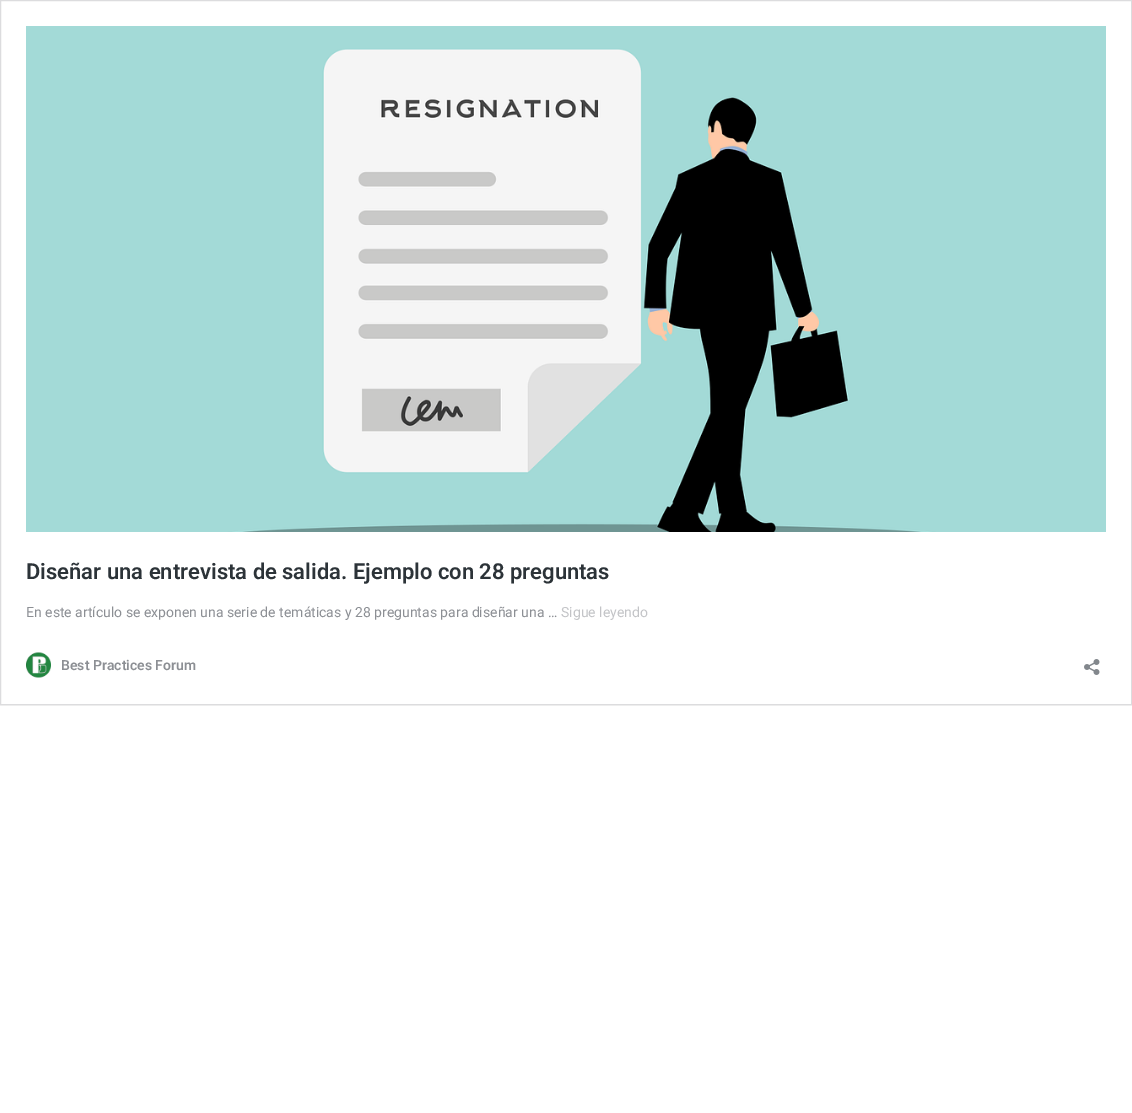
%!PS
<< /PageSize [1132 1113] /PageUsesTransparency true >> setpagedevice
/gs/gsave load def
/gr/grestore load def
/co { dup -16 bitshift 255 div exch dup -8 bitshift 255 and 255 div exch 255 and 255 div setrgbcolor } def
/fn { [ exch dup neg 0 0 3 -1 roll 0 0 ] selectfont } def
/tx { co fn moveto show } def
/bx { co rectfill } def
/al { dup .setfillconstantalpha .setstrokeconstantalpha } def
/rr { 5 dict begin { /r /h /w /y /x } { exch def } forall
  x r add y moveto x w add y 2 copy h add r arct x w add y h add x 1 index r arct
  x y h add x y r arct x y 2 copy exch w add exch r arct closepath end } def
/sh { 12 dict begin { /a /b /q /h /w /y /x } { exch def } forall gsave /was 0 def
  9 -2 -9 { dup b mul 4 div /e exch def 1 sub .425 mul 2.718 exch exp 1 add a .99 .min exch div /now exch def
    1 1 now sub 1 was sub div sub al /was now def
    w h .min e 2 mul add 0 gt { x e sub y e sub w e 2 mul add h e 2 mul add
      q e add b .6 mul add w h .min 2 div e add .min 0 .max rr fill } if } for grestore end } def
/im { 5 dict begin { /h /w /y /x /name } { exch def } forall
  gsave x y translate w h scale
  w h 8 [w 0 0 h 0 0] name (r) file false 3 colorimage grestore end } def
0 .pushpdf14devicefilter
0 1113 translate 1 -1 scale
4 setmiterlimit
0 0 1132 1113 16#FFFFFF bx
gs
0 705 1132 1 rectclip
16#000000 co
0 1 1132 705 0 .5 .05 sh
gr
16#DCDCDE co
.5 .5 1131 704 rectstroke
(media/1.raw) 26 26 1080 506 im
(media/2.raw) 26 652 25 26 im
(media/3.raw) 1084 659 16 16 im
(Diseñar una entrevista de salida. Ejemplo con 28 preguntas) 26 579 /Roboto-SemiBold 22 16#2C3338 tx
(En este artículo se exponen una serie de temáticas y 28 preguntas para diseñar una …) 26 617 /Roboto-Regular 14 16#8C8F94 tx
(Sigue leyendo) 561 617 /Roboto-Regular 14 16#C3C4C7 tx
(Best Practices Forum) 61 670 /Roboto-SemiBold 14 16#8C8F94 tx
.poppdf14devicefilter showpage
